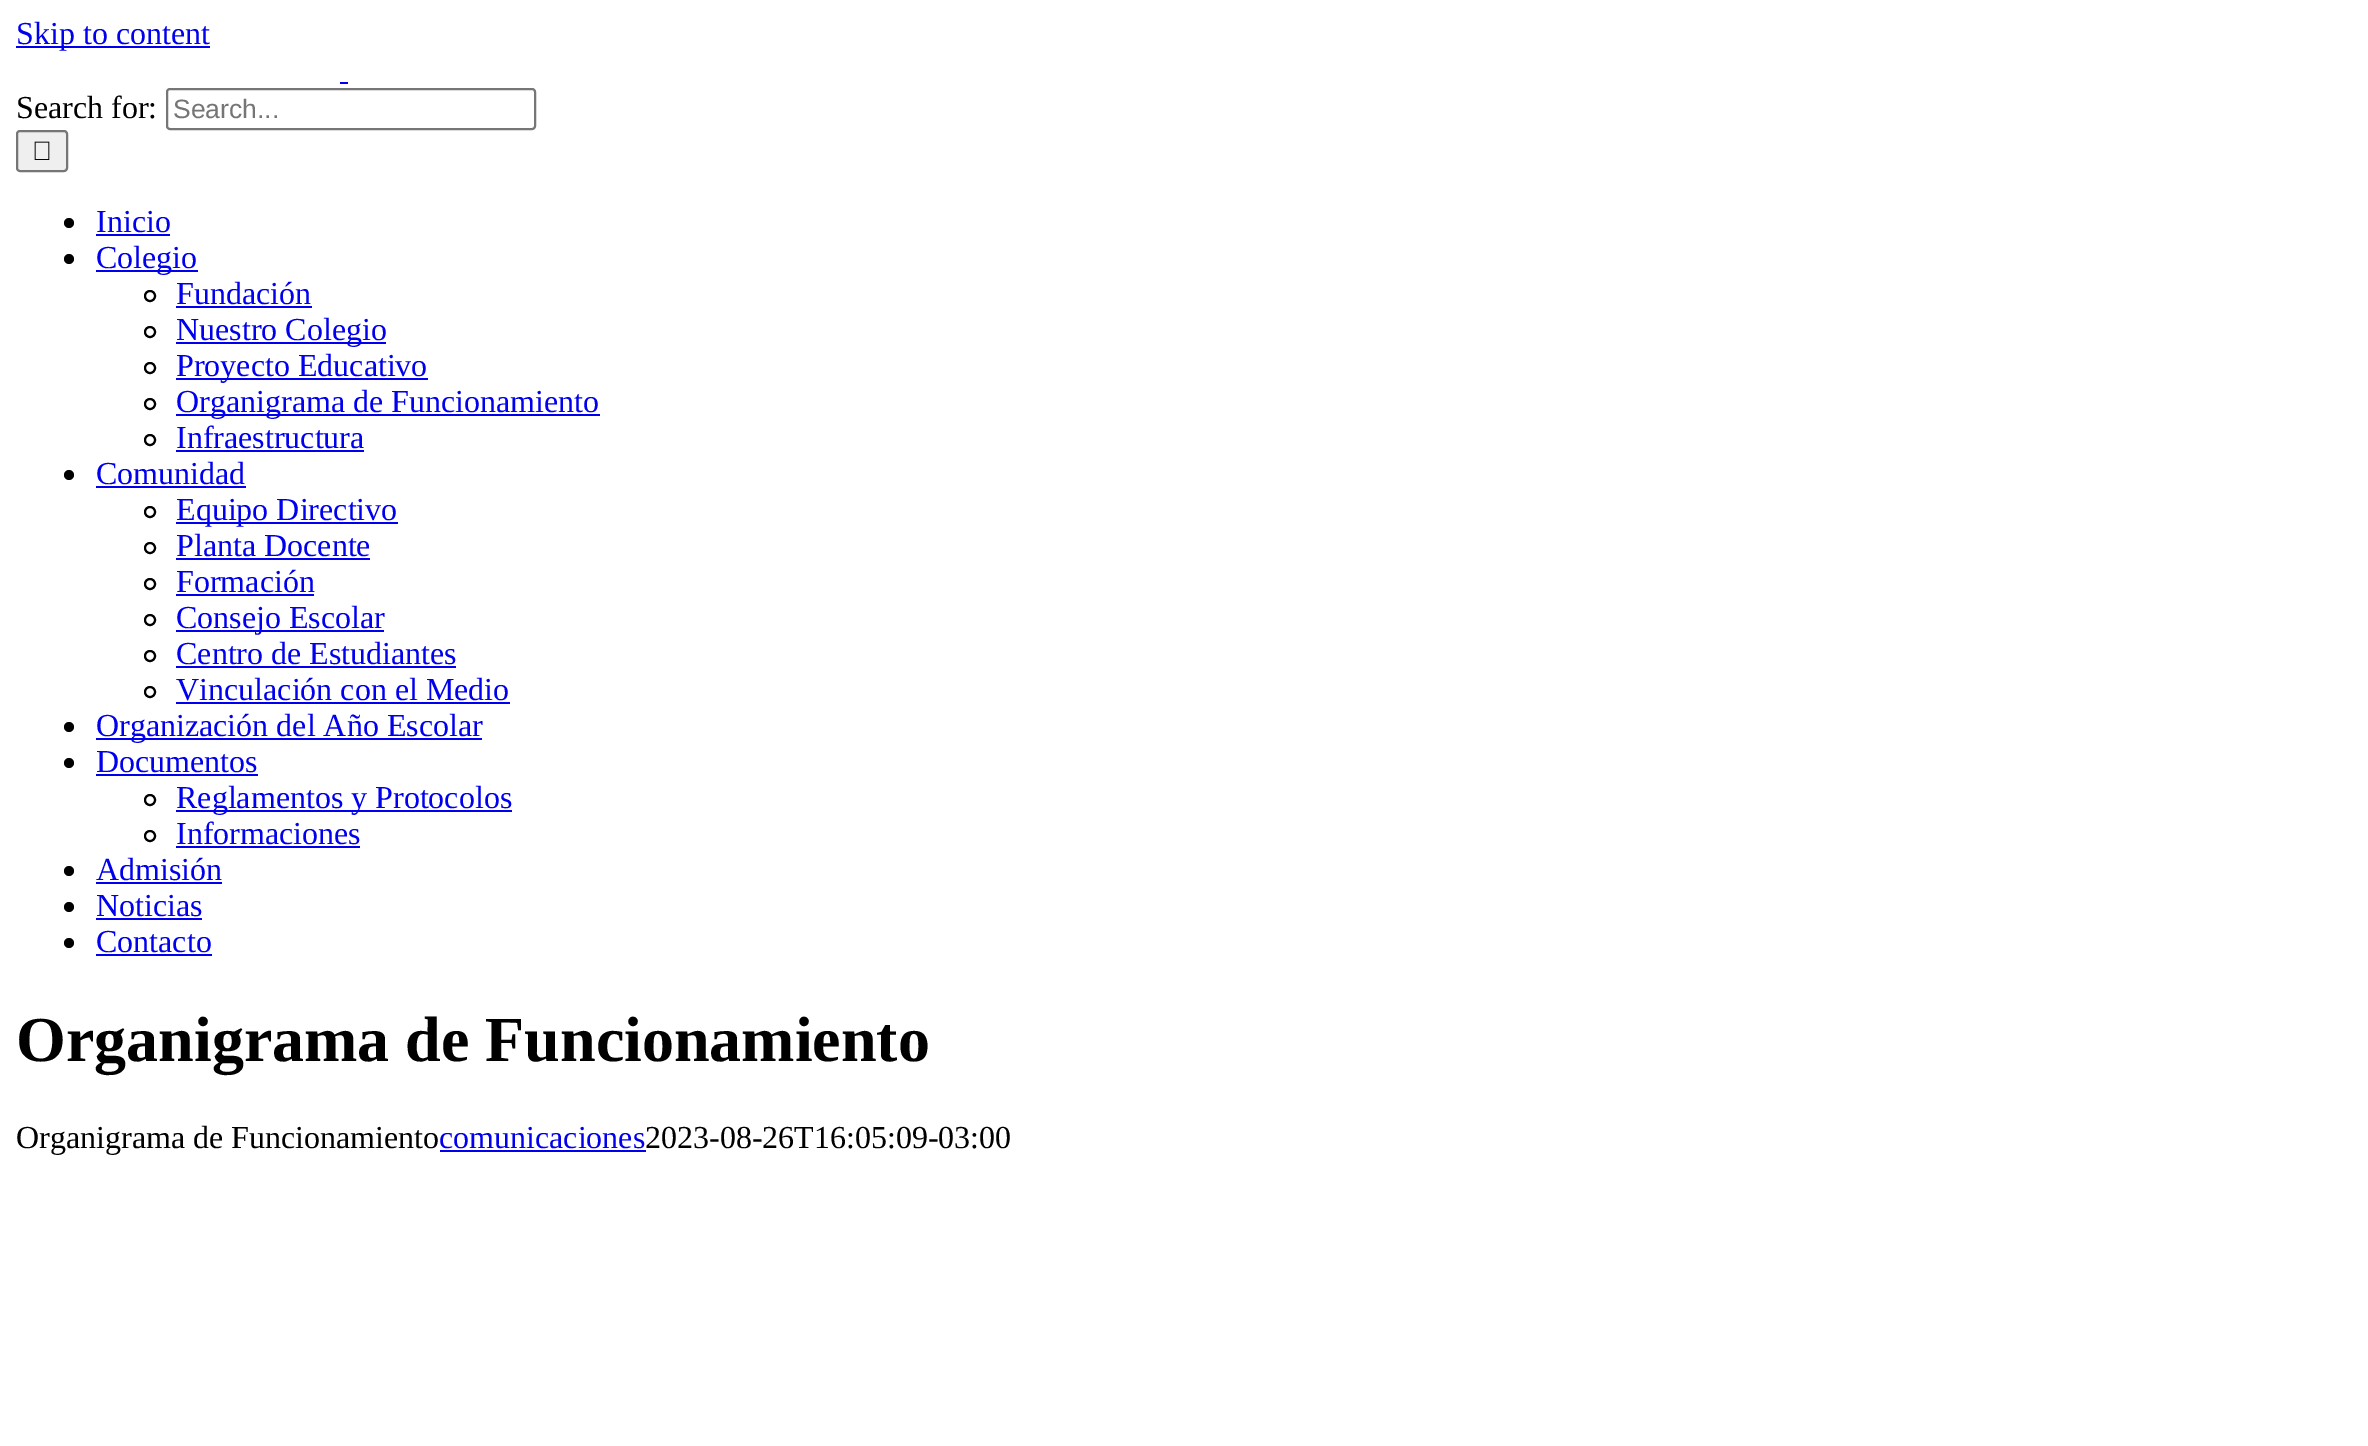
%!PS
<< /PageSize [2368 1446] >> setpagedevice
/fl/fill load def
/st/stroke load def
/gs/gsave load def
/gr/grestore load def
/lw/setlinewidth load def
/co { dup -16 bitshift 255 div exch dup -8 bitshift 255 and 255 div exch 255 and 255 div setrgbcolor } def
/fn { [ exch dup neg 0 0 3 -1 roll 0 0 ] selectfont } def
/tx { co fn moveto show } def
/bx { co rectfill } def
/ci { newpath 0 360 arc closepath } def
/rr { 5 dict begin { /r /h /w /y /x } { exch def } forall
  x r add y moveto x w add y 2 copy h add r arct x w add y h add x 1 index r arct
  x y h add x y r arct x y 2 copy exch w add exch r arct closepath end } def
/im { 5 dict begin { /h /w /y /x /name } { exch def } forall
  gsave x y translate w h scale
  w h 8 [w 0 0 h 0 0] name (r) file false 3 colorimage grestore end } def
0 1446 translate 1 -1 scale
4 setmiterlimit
0 0 2368 1446 16#FFFFFF bx
16 46 194 2 16#0000EE bx
340 82 8 2 16#0000EE bx
16#767676 co
2 lw
167 89 368 40 3 rr st
16#EFEFEF co
17 131 50 40 3 rr gs fl gr
16#767676 co
st
(media/1.raw) 34 141 16 19 im
16#000000 co
69 223 5 ci fl
96 234 74 2 16#0000EE bx
16#000000 co
69 259 5 ci fl
96 270 102 2 16#0000EE bx
16#000000 co
150 296 5 ci st
176 306 136 2 16#0000EE bx
16#000000 co
150 332 5 ci st
176 342 210 2 16#0000EE bx
16#000000 co
150 368 5 ci st
176 378 252 2 16#0000EE bx
16#000000 co
150 404 5 ci st
176 414 424 2 16#0000EE bx
16#000000 co
150 440 5 ci st
176 450 188 2 16#0000EE bx
16#000000 co
69 475 5 ci fl
96 486 150 2 16#0000EE bx
16#000000 co
150 512 5 ci st
176 522 222 2 16#0000EE bx
16#000000 co
150 548 5 ci st
176 558 194 2 16#0000EE bx
16#000000 co
150 584 5 ci st
176 594 138 2 16#0000EE bx
16#000000 co
150 620 5 ci st
176 630 208 2 16#0000EE bx
16#000000 co
150 656 5 ci st
176 666 280 2 16#0000EE bx
16#000000 co
150 692 5 ci st
176 702 334 2 16#0000EE bx
16#000000 co
69 727 5 ci fl
96 738 386 2 16#0000EE bx
16#000000 co
69 763 5 ci fl
96 774 162 2 16#0000EE bx
16#000000 co
150 800 5 ci st
176 810 336 2 16#0000EE bx
16#000000 co
150 836 5 ci st
176 846 184 2 16#0000EE bx
16#000000 co
69 871 5 ci fl
96 882 126 2 16#0000EE bx
16#000000 co
69 907 5 ci fl
96 918 106 2 16#0000EE bx
16#000000 co
69 943 5 ci fl
96 954 116 2 16#0000EE bx
440 1150 206 2 16#0000EE bx
(Skip to content) 16 44 /LiberationSerif-Regular 32 16#0000EE tx
(Search for:) 16 118 /LiberationSerif-Regular 32 16#000000 tx
(Search...) 173 118 /LiberationSans-Regular 26.5 16#757575 tx
(Inicio) 96 232 /LiberationSerif-Regular 32 16#0000EE tx
(Colegio) 96 268 /LiberationSerif-Regular 32 16#0000EE tx
(Fundación) 176 304 /LiberationSerif-Regular 32 16#0000EE tx
(Nuestro Colegio) 176 340 /LiberationSerif-Regular 32 16#0000EE tx
(Proyecto Educativo) 176 376 /LiberationSerif-Regular 32 16#0000EE tx
(Organigrama de Funcionamiento) 176 412 /LiberationSerif-Regular 32 16#0000EE tx
(Infraestructura) 176 448 /LiberationSerif-Regular 32 16#0000EE tx
(Comunidad) 96 484 /LiberationSerif-Regular 32 16#0000EE tx
(Equipo Directivo) 176 520 /LiberationSerif-Regular 32 16#0000EE tx
(Planta Docente) 176 556 /LiberationSerif-Regular 32 16#0000EE tx
(Formación) 176 592 /LiberationSerif-Regular 32 16#0000EE tx
(Consejo Escolar) 176 628 /LiberationSerif-Regular 32 16#0000EE tx
(Centro de Estudiantes) 176 664 /LiberationSerif-Regular 32 16#0000EE tx
(Vinculación con el Medio) 176 700 /LiberationSerif-Regular 32 16#0000EE tx
(Organización del Año Escolar) 96 736 /LiberationSerif-Regular 32 16#0000EE tx
(Documentos) 96 772 /LiberationSerif-Regular 32 16#0000EE tx
(Reglamentos y Protocolos) 176 808 /LiberationSerif-Regular 32 16#0000EE tx
(Informaciones) 176 844 /LiberationSerif-Regular 32 16#0000EE tx
(Admisión) 96 880 /LiberationSerif-Regular 32 16#0000EE tx
(Noticias) 96 916 /LiberationSerif-Regular 32 16#0000EE tx
(Contacto) 96 952 /LiberationSerif-Regular 32 16#0000EE tx
(Organigrama de Funcionamiento) 16 1061 /LiberationSerif-Bold 64 16#000000 tx
(Organigrama de Funcionamiento) 16 1148 /LiberationSerif-Regular 32 16#000000 tx
(comunicaciones) 439 1148 /LiberationSerif-Regular 32 16#0000EE tx
(2023-08-26T16:05:09-03:00) 645 1148 /LiberationSerif-Regular 32 16#000000 tx
showpage
